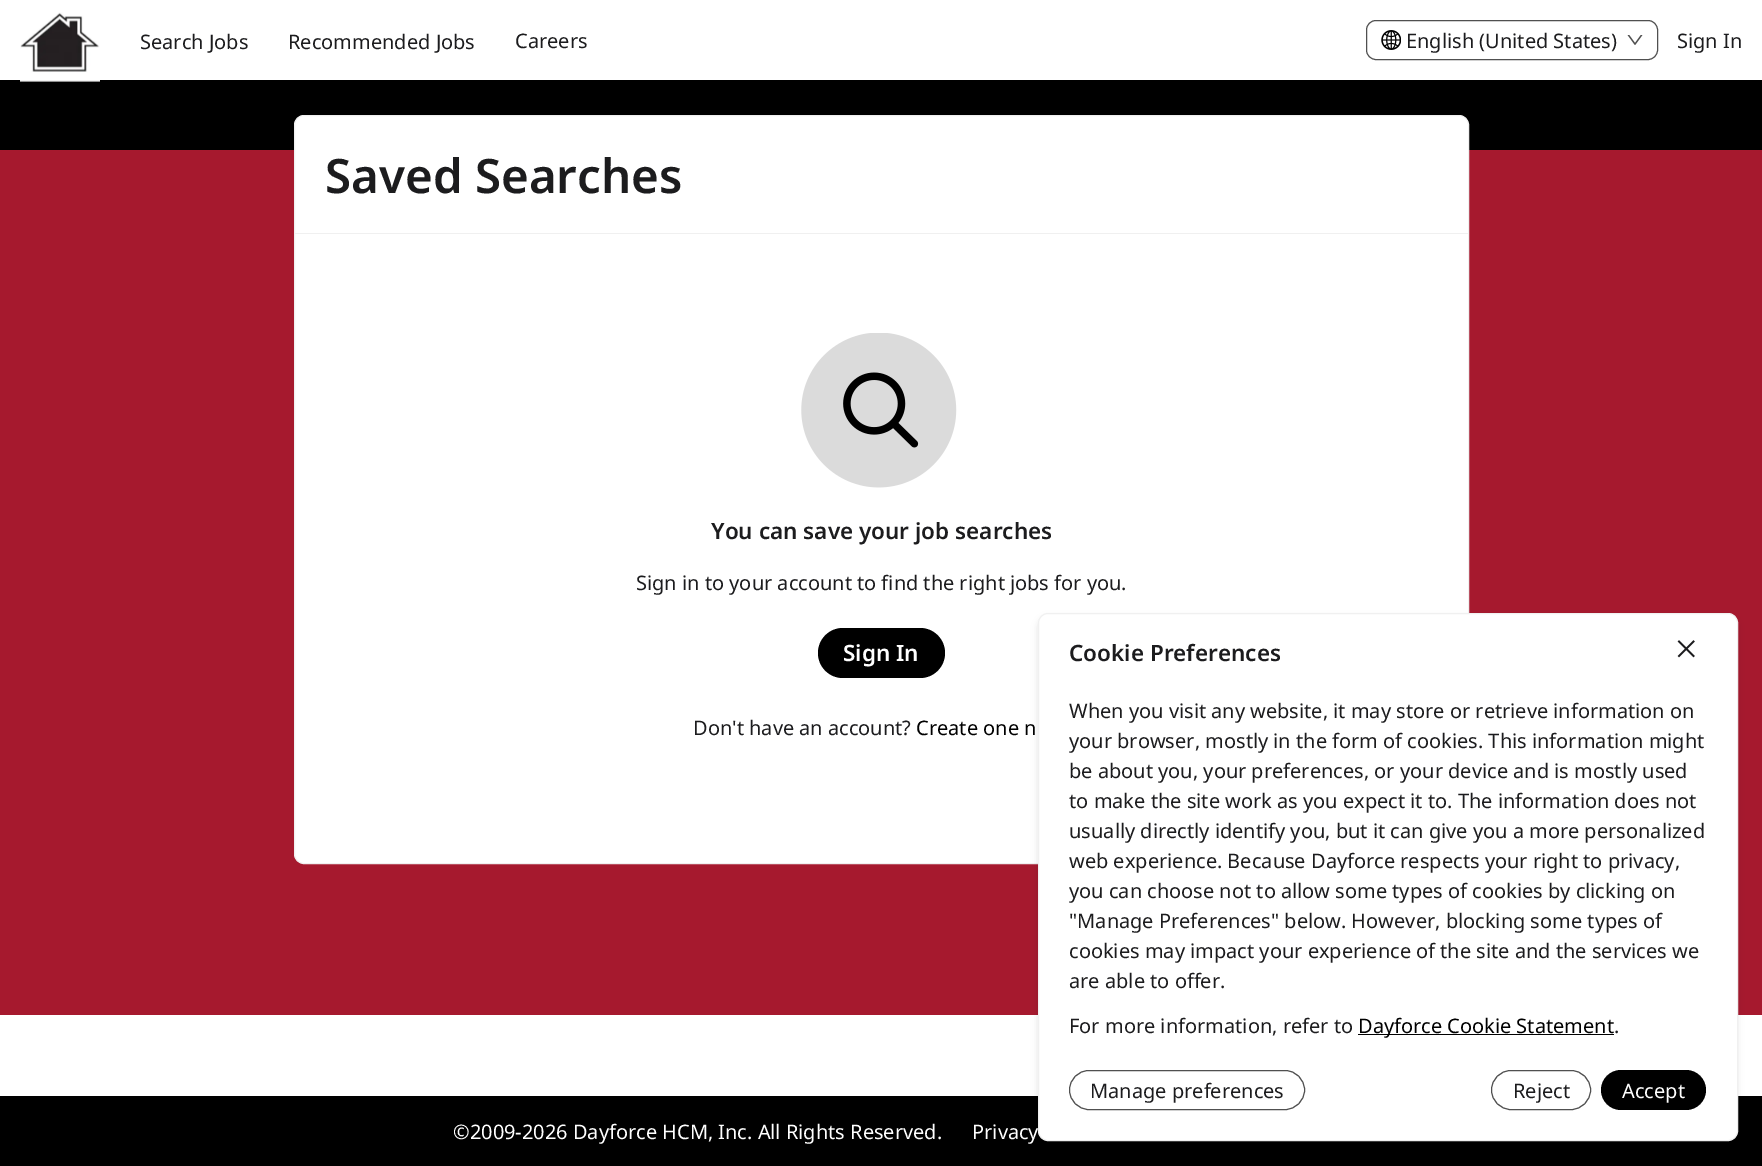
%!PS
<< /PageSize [1762 1166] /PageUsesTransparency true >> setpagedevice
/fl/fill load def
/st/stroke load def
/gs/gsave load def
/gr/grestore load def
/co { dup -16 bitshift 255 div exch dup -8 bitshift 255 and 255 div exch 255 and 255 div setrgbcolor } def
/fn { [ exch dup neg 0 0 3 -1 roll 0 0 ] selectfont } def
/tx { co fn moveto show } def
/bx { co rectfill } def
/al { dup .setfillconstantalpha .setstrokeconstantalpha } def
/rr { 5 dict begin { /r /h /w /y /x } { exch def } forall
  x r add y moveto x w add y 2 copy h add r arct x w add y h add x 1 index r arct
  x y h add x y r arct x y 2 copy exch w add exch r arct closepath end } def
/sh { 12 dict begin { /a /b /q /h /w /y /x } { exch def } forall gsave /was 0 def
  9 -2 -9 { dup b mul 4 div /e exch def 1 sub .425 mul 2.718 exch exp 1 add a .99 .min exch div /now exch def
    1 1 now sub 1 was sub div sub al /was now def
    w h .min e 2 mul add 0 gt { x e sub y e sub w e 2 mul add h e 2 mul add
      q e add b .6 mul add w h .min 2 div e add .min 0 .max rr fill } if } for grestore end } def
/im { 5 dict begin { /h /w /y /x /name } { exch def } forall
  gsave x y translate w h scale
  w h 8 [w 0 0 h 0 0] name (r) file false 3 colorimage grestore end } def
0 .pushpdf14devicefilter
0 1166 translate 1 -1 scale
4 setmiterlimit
0 0 1762 1166 16#FFFFFF bx
0 80 1762 70 16#000000 bx
(media/1.raw) 20 12 80 70 im
16#505050 co
1366.5 20.5 291 39 9.5 rr st
(media/2.raw) 1381 30 20 20 im
(media/3.raw) 1627 35 16 10 im
0 150 1762 865 16#A6192E bx
16#FFFFFF co
294.5 115.5 1174 748 9.5 rr gs fl gr
16#F0F0F0 co
st
295 233 1173 1 16#F0F0F0 bx
(media/4.raw) 801 333 156 155 im
16#000000 co
818 628 127 50 25 rr fl
0 1096 1762 70 16#000000 bx
1040 618 695 523 8 2.5 .1 sh
1039 619 697 526 9 4 .1 sh
16#FFFFFF co
1038.5 613.5 699 527 9.5 rr gs fl gr
16#F0F0F0 co
st
(media/5.raw) 1677 640 18 18 im
1358 1034 256 1 16#000000 bx
16#505050 co
1069.5 1070.5 235 39 19.5 rr st
1491.5 1070.5 99 39 19.5 rr st
16#000000 co
1601 1070 105 40 20 rr fl
(Search Jobs) 140 49 /NotoSans-Regular 20 16#1C1C1E tx
(Recommended Jobs) 288 49 /NotoSans-Regular 20 16#1C1C1E tx
(Careers) 515 48 /NotoSans-Regular 20 16#1C1C1E tx
(English \(United States\)) 1406 48 /NotoSans-Regular 20 16#1C1C1E tx
(Sign In) 1677 48 /NotoSans-Regular 20 16#1C1C1E tx
(Saved Searches) 325 193 /NotoSans-SemiBold 47.5 16#1C1C1E tx
(You can save your job searches) 711 539 /NotoSans-SemiBold 22.5 16#1C1C1E tx
(Sign in to your account to find the right jobs for you.) 636 590 /NotoSans-Regular 20 16#1C1C1E tx
(Sign In) 843 661 /NotoSans-SemiBold 22.5 16#FFFFFF tx
(Don't have an account?) 693 735 /NotoSans-Regular 20 16#1C1C1E tx
(Create one n) 916 735 /NotoSans-Regular 20 16#000000 tx
(©2009-2026 Dayforce HCM, Inc. All Rights Reserved.) 453 1139 /NotoSans-Regular 20 16#FFFFFF tx
(Privacy) 972 1139 /NotoSans-Regular 20 16#FFFFFF tx
(Cookie Preferences) 1069 661 /NotoSans-SemiBold 22.5 16#1C1C1E tx
(When you visit any website, it may store or retrieve information on) 1069 718 /NotoSans-Regular 20 16#1C1C1E tx
(your browser, mostly in the form of cookies. This information might) 1069 748 /NotoSans-Regular 20 16#1C1C1E tx
(be about you, your preferences, or your device and is mostly used) 1069 778 /NotoSans-Regular 20 16#1C1C1E tx
(to make the site work as you expect it to. The information does not) 1069 808 /NotoSans-Regular 20 16#1C1C1E tx
(usually directly identify you, but it can give you a more personalized) 1069 838 /NotoSans-Regular 20 16#1C1C1E tx
(web experience. Because Dayforce respects your right to privacy,) 1069 868 /NotoSans-Regular 20 16#1C1C1E tx
(you can choose not to allow some types of cookies by clicking on) 1069 898 /NotoSans-Regular 20 16#1C1C1E tx
("Manage Preferences" below. However, blocking some types of) 1069 928 /NotoSans-Regular 20 16#1C1C1E tx
(cookies may impact your experience of the site and the services we) 1069 958 /NotoSans-Regular 20 16#1C1C1E tx
(are able to offer.) 1069 988 /NotoSans-Regular 20 16#1C1C1E tx
(For more information, refer to) 1069 1033 /NotoSans-Regular 20 16#1C1C1E tx
(Dayforce Cookie Statement) 1358 1033 /NotoSans-Regular 20 16#000000 tx
(.) 1614 1033 /NotoSans-Regular 20 16#1C1C1E tx
(Manage preferences) 1090 1098 /NotoSans-Regular 20 16#1C1C1E tx
(Reject) 1513 1098 /NotoSans-Regular 20 16#1C1C1E tx
(Accept) 1622 1098 /NotoSans-Regular 20 16#FFFFFF tx
.poppdf14devicefilter showpage
